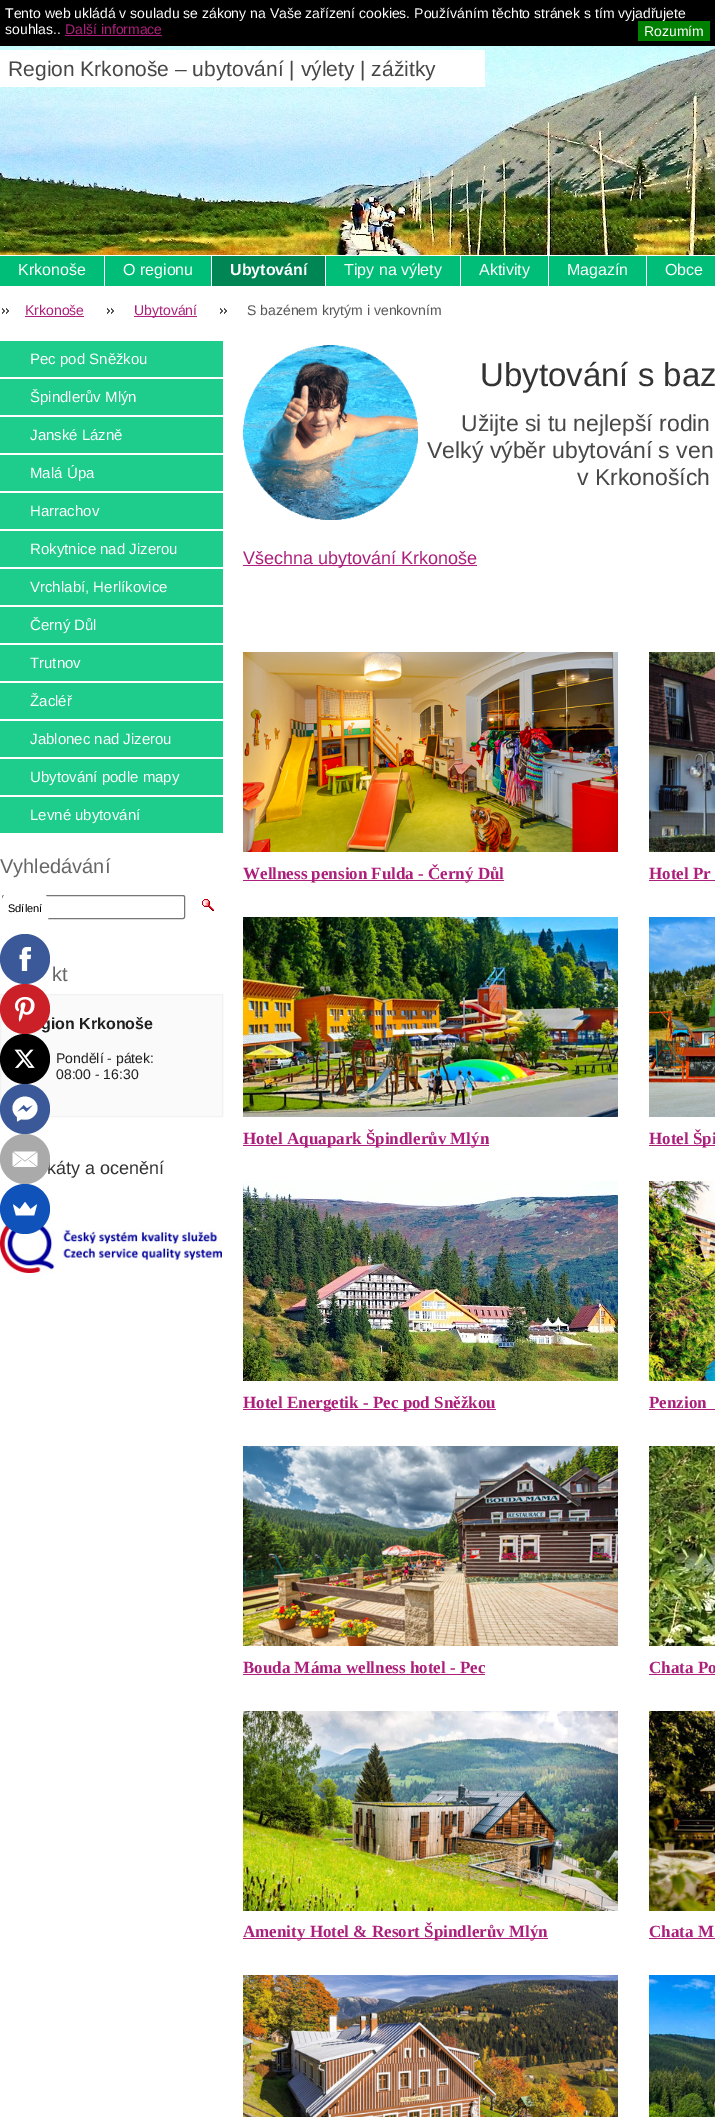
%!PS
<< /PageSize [715 2117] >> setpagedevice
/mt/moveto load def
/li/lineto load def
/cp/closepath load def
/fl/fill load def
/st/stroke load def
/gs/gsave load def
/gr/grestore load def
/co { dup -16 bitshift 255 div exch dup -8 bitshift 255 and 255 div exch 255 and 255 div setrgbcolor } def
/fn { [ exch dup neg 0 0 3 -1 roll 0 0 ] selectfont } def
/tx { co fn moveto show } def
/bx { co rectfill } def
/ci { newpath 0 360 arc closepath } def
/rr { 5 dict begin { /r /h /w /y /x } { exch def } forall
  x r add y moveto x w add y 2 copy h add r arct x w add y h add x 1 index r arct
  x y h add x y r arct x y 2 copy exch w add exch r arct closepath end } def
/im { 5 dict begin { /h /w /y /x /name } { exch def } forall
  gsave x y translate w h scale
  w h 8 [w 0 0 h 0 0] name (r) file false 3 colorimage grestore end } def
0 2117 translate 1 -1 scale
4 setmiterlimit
0 0 715 2117 16#FFFFFF bx
0 0 715 46 16#000000 bx
65 35 97 1 16#AC207B bx
638 21 72 20 16#008000 bx
(media/1.raw) 0 46 715 209 im
0 50 485 37 16#FFFFFF bx
0 256 104 30 16#00BD78 bx
105 256 106 30 16#00BD78 bx
212 256 113 30 16#008554 bx
326 256 134 30 16#00BD78 bx
461 256 87 30 16#00BD78 bx
549 256 97 30 16#00BD78 bx
647 256 68 30 16#00BD78 bx
(media/2.raw) 2 308 7 6 im
25 316 59 1 16#AC207B bx
(media/2.raw) 107 308 7 6 im
134 316 63 1 16#AC207B bx
(media/2.raw) 220 308 7 6 im
0 341 223 36 16#1ECC8C bx
0 379 223 36 16#1ECC8C bx
0 417 223 36 16#1ECC8C bx
0 455 223 36 16#1ECC8C bx
0 493 223 36 16#1ECC8C bx
0 531 223 36 16#1ECC8C bx
0 569 223 36 16#1ECC8C bx
0 607 223 36 16#1ECC8C bx
0 645 223 36 16#1ECC8C bx
0 683 223 36 16#1ECC8C bx
0 721 223 36 16#1ECC8C bx
0 759 223 36 16#1ECC8C bx
0 797 223 36 16#1ECC8C bx
16#767676 co
2.5 895.5 182 23 1.5 rr st
(media/3.raw) 202 899 12 12 im
16#FAFAFA co
.5 994.5 mt 222.5 994.5 li 222.5 1116.5 li .5 1116.5 li cp gs fl gr
16#F2F2F2 co
st
(media/4.raw) 0 1214 222 59 im
(media/5.raw) 243 345 175 175 im
243 565 234 1 16#AC207B bx
(media/6.raw) 243 652 375 200 im
243 880 261 1 16#AC207B bx
(media/7.raw) 243 917 375 200 im
243 1145 246 1 16#AC207B bx
(media/8.raw) 243 1181 375 200 im
243 1409 253 1 16#AC207B bx
(media/9.raw) 243 1446 375 200 im
243 1674 242 1 16#AC207B bx
(media/10.raw) 243 1711 375 200 im
243 1938 305 1 16#AC207B bx
(media/11.raw) 243 1975 375 142 im
(media/12.raw) 649 652 66 200 im
649 880 66 1 16#AC207B bx
(media/13.raw) 649 917 66 200 im
649 1145 66 1 16#AC207B bx
(media/14.raw) 649 1181 66 200 im
649 1409 66 1 16#AC207B bx
(media/15.raw) 649 1446 66 200 im
649 1674 66 1 16#AC207B bx
(media/16.raw) 649 1711 66 200 im
649 1938 66 1 16#AC207B bx
(media/17.raw) 649 1975 66 142 im
16#FFFFFF co
25 909 25 ci fl
16#3B5998 co
25 959 25 ci fl
(media/18.raw) 19 947 12 24 im
16#000000 co
25 1059 25 ci fl
(media/20.raw) 14 1049 21 19 im
16#3B5998 co
25 1109 25 ci fl
(media/21.raw) 12 1096 26 26 im
16#0F52BA co
25 1209 25 ci fl
(media/23.raw) 13 1202 24 14 im
(Tento web ukládá v souladu se zákony na Vaše zařízení cookies. Používáním těchto stránek s tím vyjadřujete) 5 18 /LiberationSans-Regular 14 16#FFFFFF tx
(souhlas..) 5 34 /LiberationSans-Regular 14 16#FFFFFF tx
(Další informace) 65 34 /LiberationSans-Regular 14 16#AC207B tx
(Rozumím) 644 36 /LiberationSans-Regular 14 16#FFFFFF tx
(Region Krkonoše – ubytování | výlety | zážitky) 8 76 /LiberationSans-Regular 21 16#484747 tx
(Krkonoše) 18 275 /LiberationSans-Regular 16 16#FFFFFF tx
(O regionu) 123 275 /LiberationSans-Regular 16 16#FFFFFF tx
(Ubytování) 230 275 /LiberationSans-Bold 16 16#FFFFFF tx
(Tipy na výlety) 344 275 /LiberationSans-Regular 16 16#FFFFFF tx
(Aktivity) 479 275 /LiberationSans-Regular 16 16#FFFFFF tx
(Magazín) 567 275 /LiberationSans-Regular 16 16#FFFFFF tx
(Obce) 665 275 /LiberationSans-Regular 16 16#FFFFFF tx
(Krkonoše) 25 315 /LiberationSans-Regular 14 16#AC207B tx
(Ubytování) 134 315 /LiberationSans-Regular 14 16#AC207B tx
(S bazénem krytým i venkovním) 247 315 /LiberationSans-Regular 14 16#575757 tx
(Pec pod Sněžkou) 30 364 /LiberationSans-Regular 15 16#FFFFFF tx
(Špindlerův Mlýn) 30 402 /LiberationSans-Regular 15 16#FFFFFF tx
(Janské Lázně) 30 440 /LiberationSans-Regular 15 16#FFFFFF tx
(Malá Úpa) 30 478 /LiberationSans-Regular 15 16#FFFFFF tx
(Harrachov) 30 516 /LiberationSans-Regular 15 16#FFFFFF tx
(Rokytnice nad Jizerou) 30 554 /LiberationSans-Regular 15 16#FFFFFF tx
(Vrchlabí, Herlíkovice) 30 592 /LiberationSans-Regular 15 16#FFFFFF tx
(Černý Důl) 30 630 /LiberationSans-Regular 15 16#FFFFFF tx
(Trutnov) 30 668 /LiberationSans-Regular 15 16#FFFFFF tx
(Žacléř) 30 706 /LiberationSans-Regular 15 16#FFFFFF tx
(Jablonec nad Jizerou) 30 744 /LiberationSans-Regular 15 16#FFFFFF tx
(Ubytování podle mapy) 30 782 /LiberationSans-Regular 15 16#FFFFFF tx
(Levné ubytování) 30 820 /LiberationSans-Regular 15 16#FFFFFF tx
(Vyhledávání) 0 873 /LiberationSans-Regular 20 16#666666 tx
(kt) 52 981 /LiberationSans-Regular 20 16#666666 tx
(gion Krkonoše) 41 1029 /LiberationSans-Bold 16 16#1F1F1F tx
(Pondělí - pátek:) 56 1063 /LiberationSans-Regular 14 16#1F1F1F tx
(08:00 - 16:30) 56 1079 /LiberationSans-Regular 14 16#1F1F1F tx
(káty a ocenění) 47 1174 /LiberationSans-Regular 18 16#333333 tx
(Ubytování s baz) 480 386 /LiberationSans-Regular 33 16#333333 tx
(Užijte si tu nejlepší rodin) 461 431 /LiberationSans-Regular 23 16#484747 tx
(Velký výběr ubytování s ven) 427 458 /LiberationSans-Regular 23 16#484747 tx
(v Krkonoších) 577 485 /LiberationSans-Regular 23 16#484747 tx
(Všechna ubytování Krkonoše) 243 564 /LiberationSans-Regular 18 16#AC207B tx
(Wellness pension Fulda - Černý Důl) 243 879 /LiberationSerif-Bold 17 16#AC207B tx
(Hotel Aquapark Špindlerův Mlýn) 243 1144 /LiberationSerif-Bold 17 16#AC207B tx
(Hotel Energetik - Pec pod Sněžkou) 243 1408 /LiberationSerif-Bold 17 16#AC207B tx
(Bouda Máma wellness hotel - Pec) 243 1673 /LiberationSerif-Bold 17 16#AC207B tx
(Amenity Hotel & Resort Špindlerův Mlýn) 243 1937 /LiberationSerif-Bold 17 16#AC207B tx
(Hotel Pr) 649 879 /LiberationSerif-Bold 17 16#AC207B tx
(Hotel Špi) 649 1144 /LiberationSerif-Bold 17 16#AC207B tx
(Penzion) 649 1408 /LiberationSerif-Bold 17 16#AC207B tx
(Chata Po) 649 1673 /LiberationSerif-Bold 17 16#AC207B tx
(Chata M) 649 1937 /LiberationSerif-Bold 17 16#AC207B tx
(Sdílení) 8 912 /LiberationSans-Regular 11 16#000000 tx
16#CB2027 co
25 1009 25 ci fl
(media/19.raw) 15 997 20 25 im
16#AAAAAA co
25 1159 25 ci fl
(media/22.raw) 12 1151 26 16 im
showpage
